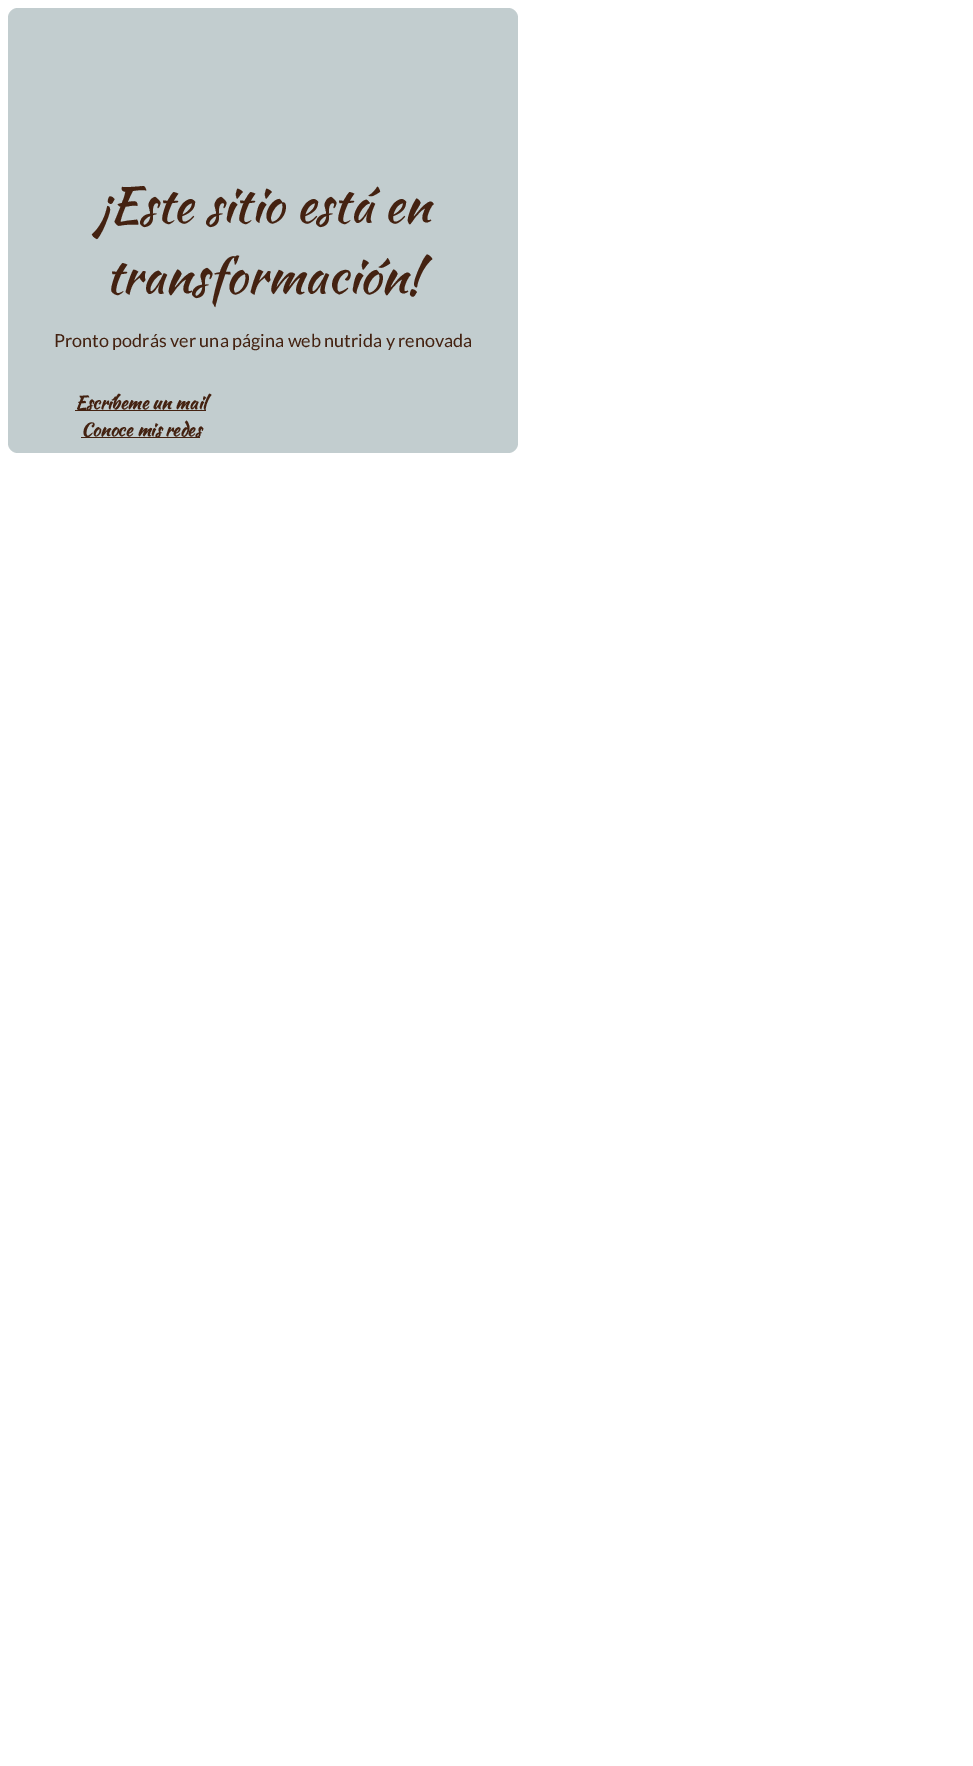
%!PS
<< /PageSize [973 1766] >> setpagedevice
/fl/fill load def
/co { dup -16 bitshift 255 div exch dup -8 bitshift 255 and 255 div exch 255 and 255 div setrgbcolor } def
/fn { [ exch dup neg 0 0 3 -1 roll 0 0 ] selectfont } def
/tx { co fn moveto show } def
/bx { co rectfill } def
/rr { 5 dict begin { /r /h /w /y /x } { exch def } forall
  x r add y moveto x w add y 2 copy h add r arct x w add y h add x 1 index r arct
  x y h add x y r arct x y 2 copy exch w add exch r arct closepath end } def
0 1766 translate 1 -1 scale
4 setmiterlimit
0 0 973 1766 16#FFFFFF bx
16#C2CDCF co
8 8 510 445 10 rr fl
75 410 131 1 16#442211 bx
81 437 119 1 16#442211 bx
(¡Este sitio está en) 96 222 /KaushanScript-Regular 49 16#442211 tx
(transformación!) 105 293 /KaushanScript-Regular 49 16#442211 tx
(Pronto podrás ver una página web nutrida y renovada) 54 347 /Lato-Regular 18 16#442211 tx
(Escríbeme un mail) 75 409 /KaushanScript-Bold 18 16#442211 tx
(Conoce mis redes) 81 436 /KaushanScript-Bold 18 16#442211 tx
showpage
